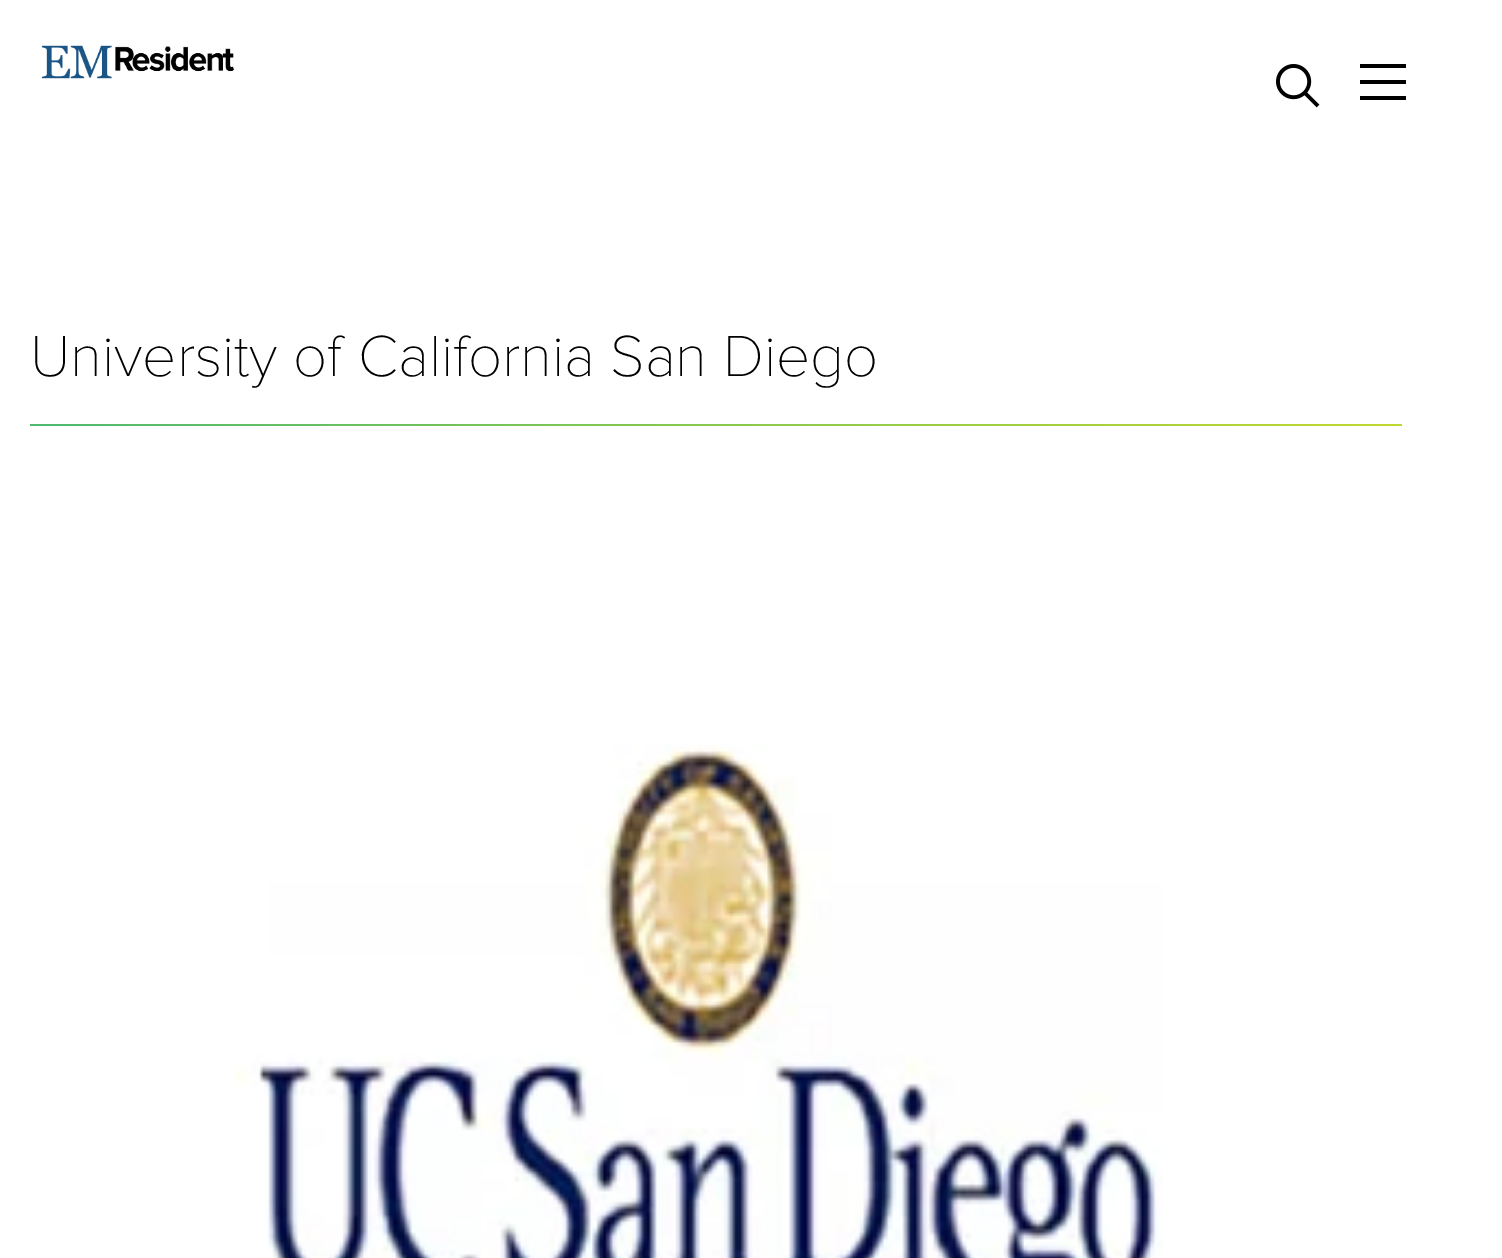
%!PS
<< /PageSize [1502 1258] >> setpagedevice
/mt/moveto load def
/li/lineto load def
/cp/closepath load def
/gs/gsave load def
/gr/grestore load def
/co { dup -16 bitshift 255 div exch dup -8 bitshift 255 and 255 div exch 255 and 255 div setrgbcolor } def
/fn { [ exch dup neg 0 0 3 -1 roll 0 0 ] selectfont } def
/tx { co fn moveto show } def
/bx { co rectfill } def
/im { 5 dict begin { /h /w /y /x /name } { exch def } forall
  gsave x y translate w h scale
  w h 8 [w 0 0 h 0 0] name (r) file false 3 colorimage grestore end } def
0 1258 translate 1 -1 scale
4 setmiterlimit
0 0 1502 1258 16#FFFFFF bx
(media/1.raw) 41 45 193 34 im
(media/2.raw) 1276 64 44 44 im
1360 64 46 4 16#000000 bx
1360 80 46 4 16#000000 bx
1360 96 46 4 16#000000 bx
gs 30 424 mt 1402 424 li 1402 426 li 30 426 li cp clip newpath
<< /ShadingType 2 /ColorSpace /DeviceRGB /Coords [1402 437 30 413] /Extend [true true] /Function << /FunctionType 2 /Domain [0 1] /C0 [.757 .847 .184] /C1 [.314 .729 .439] /N 1 >> >> shfill gr
(media/3.raw) 234 744 929 514 im
(University of California San Diego) 30 376 /ProximaNova-Thin 60 16#000000 tx
showpage
